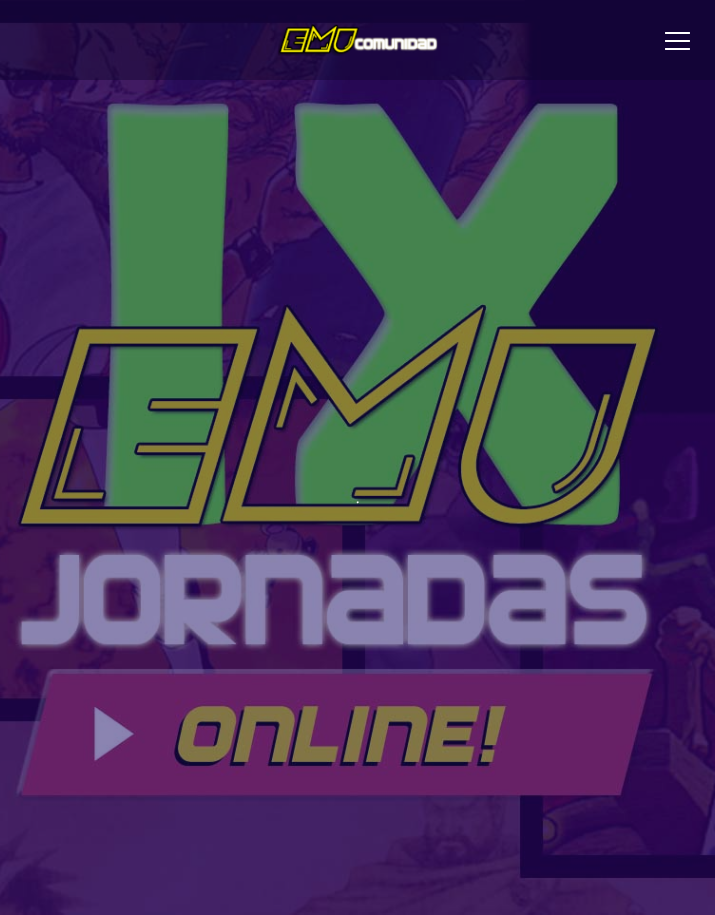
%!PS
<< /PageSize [715 915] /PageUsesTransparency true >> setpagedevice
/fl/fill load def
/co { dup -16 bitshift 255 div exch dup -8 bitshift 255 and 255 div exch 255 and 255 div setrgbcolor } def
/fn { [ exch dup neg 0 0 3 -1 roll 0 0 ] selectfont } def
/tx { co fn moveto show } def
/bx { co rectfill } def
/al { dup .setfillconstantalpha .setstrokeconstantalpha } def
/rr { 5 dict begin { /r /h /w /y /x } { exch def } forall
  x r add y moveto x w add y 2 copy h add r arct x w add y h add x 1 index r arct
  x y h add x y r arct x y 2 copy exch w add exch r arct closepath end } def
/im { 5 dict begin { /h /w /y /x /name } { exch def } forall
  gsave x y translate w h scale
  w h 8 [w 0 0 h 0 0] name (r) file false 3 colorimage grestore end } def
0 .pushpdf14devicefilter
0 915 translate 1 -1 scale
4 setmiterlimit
0 0 715 915 16#160962 bx
(media/2.raw) 0 0 715 915 im
0.4 al
0 0 715 80 16#080325 bx
1 al
(media/1.raw) 278 24 160 32 im
16#FFFFFF co
665 32 25 2 1 rr fl
665 40 25 2 1 rr fl
665 48 25 2 1 rr fl
(.) 356 503 /Ubuntu-Regular 14 16#FFFFFF tx
.poppdf14devicefilter showpage
